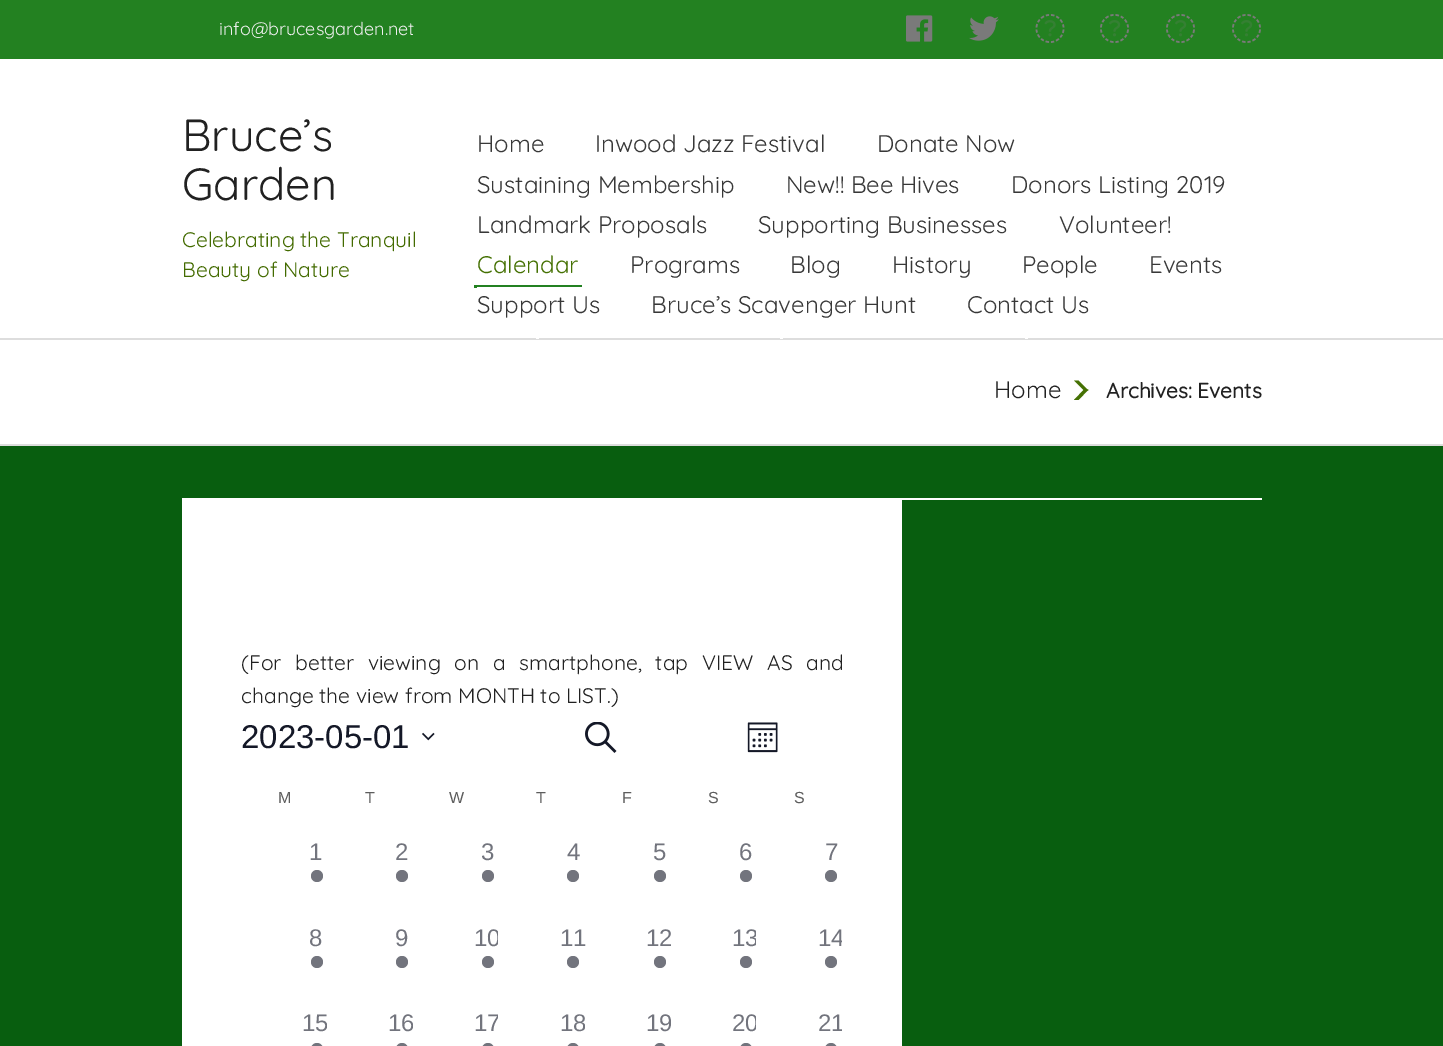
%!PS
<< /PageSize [1443 1046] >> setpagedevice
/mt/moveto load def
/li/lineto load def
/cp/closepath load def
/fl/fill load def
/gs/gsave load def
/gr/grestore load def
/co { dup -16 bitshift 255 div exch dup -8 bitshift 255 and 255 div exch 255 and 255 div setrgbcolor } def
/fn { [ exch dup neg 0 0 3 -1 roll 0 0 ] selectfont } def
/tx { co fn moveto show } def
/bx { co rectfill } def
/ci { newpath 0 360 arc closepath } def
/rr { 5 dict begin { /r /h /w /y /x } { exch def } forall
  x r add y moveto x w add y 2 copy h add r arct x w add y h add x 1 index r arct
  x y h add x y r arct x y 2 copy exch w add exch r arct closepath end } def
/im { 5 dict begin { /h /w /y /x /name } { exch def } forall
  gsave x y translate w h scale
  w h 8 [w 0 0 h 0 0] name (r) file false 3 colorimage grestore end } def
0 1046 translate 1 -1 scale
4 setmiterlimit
0 0 1443 1046 16#085E0F bx
0 59 1443 279 16#FFFFFF bx
0 0 1443 59 16#238121 bx
(media/1.raw) 906 15 27 27 im
(media/2.raw) 969 16 30 25 im
(media/3.raw) 1035 14 30 29 im
(media/4.raw) 1100 14 29 29 im
(media/4.raw) 1166 14 29 29 im
(media/4.raw) 1232 14 29 29 im
474 285 108 3 16#238121 bx
477 287 105 1 16#FFFFFF bx
0 338 1443 2 16#DDDDDD bx
536 338 3 1 16#FFFFFF bx
780 338 3 1 16#FFFFFF bx
1025 338 3 1 16#FFFFFF bx
0 340 1443 104 16#FFFFFF bx
0 444 1443 2 16#DDDDDD bx
16#457103 co
1074 380.5 mt 1078.5 380.5 li 1088.5 390.5 li 1084 390.5 li cp fl
1084 389.5 mt 1088.5 389.5 li 1078.5 400 li 1074 400 li cp fl
902 498 360 2 16#FFFFFF bx
182 498 720 548 16#FFFFFF bx
(media/5.raw) 422 732 13 9 im
(media/6.raw) 585 722 32 31 im
(media/7.raw) 747 722 31 31 im
16#72747D co
317 876 6 ci fl
402 876 6 ci fl
488 876 6 ci fl
573 876 6 ci fl
660 876 6 ci fl
746 876 6 ci fl
831 876 6 ci fl
317 962 6 ci fl
402 962 6 ci fl
488 962 6 ci fl
573 962 6 ci fl
660 962 6 ci fl
746 962 6 ci fl
831 962 6 ci fl
311 1043 12 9 6 rr fl
396 1043 12 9 6 rr fl
482 1043 12 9 6 rr fl
567 1043 12 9 6 rr fl
654 1043 12 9 6 rr fl
740 1043 12 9 6 rr fl
825 1043 12 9 6 rr fl
(info@brucesgarden.net) 219 35 /Quicksand-Light 18 16#F0F0F0 tx
(Bruce’s) 182 151 /Quicksand-Light 45 16#212121 tx
(Garden) 182 200 /Quicksand-Light 45 16#212121 tx
(Celebrating the Tranquil) 182 247 /Quicksand-Light 21 16#436B00 tx
(Beauty of Nature) 182 277 /Quicksand-Light 21 16#436B00 tx
(Home) 477 152 /Quicksand-Light 24 16#383838 tx
(Inwood Jazz Festival) 595 152 /Quicksand-Light 24 16#383838 tx
(Donate Now) 877 152 /Quicksand-Light 24 16#383838 tx
(Sustaining Membership) 477 193 /Quicksand-Light 24 16#383838 tx
(New!! Bee Hives) 786 193 /Quicksand-Light 24 16#383838 tx
(Donors Listing 2019) 1011 193 /Quicksand-Light 24 16#383838 tx
(Landmark Proposals) 477 233 /Quicksand-Light 24 16#383838 tx
(Supporting Businesses) 758 233 /Quicksand-Light 24 16#383838 tx
(Volunteer!) 1059 233 /Quicksand-Light 24 16#383838 tx
(Calendar) 477 273 /Quicksand-Light 24 16#457103 tx
(Programs) 630 273 /Quicksand-Light 24 16#383838 tx
(Blog) 790 273 /Quicksand-Light 24 16#383838 tx
(History) 892 273 /Quicksand-Light 24 16#383838 tx
(People) 1022 273 /Quicksand-Light 24 16#383838 tx
(Events) 1149 273 /Quicksand-Light 24 16#383838 tx
(Support Us) 477 313 /Quicksand-Light 24 16#383838 tx
(Bruce’s Scavenger Hunt) 651 313 /Quicksand-Light 24 16#383838 tx
(Contact Us) 967 313 /Quicksand-Light 24 16#383838 tx
(Home) 994 398 /Quicksand-Light 24 16#212121 tx
(Archives: Events) 1106 398 /Quicksand-Bold 21 16#212121 tx
/Quicksand-Light 21 fn
241 670 mt 8 0 32 (\(For better viewing on a smartphone, tap VIEW AS and) widthshow
(change the view from MONTH to LIST.\)) 241 703 /Quicksand-Light 21 16#212121 tx
(2023-05-01) 241 748 /LiberationSans-Regular 33 16#141827 tx
(M) 278 803 /LiberationSans-Regular 16 16#5D5D5D tx
(T) 365 803 /LiberationSans-Regular 16 16#5D5D5D tx
(W) 449 803 /LiberationSans-Regular 16 16#5D5D5D tx
(T) 536 803 /LiberationSans-Regular 16 16#5D5D5D tx
(F) 622 803 /LiberationSans-Regular 16 16#5D5D5D tx
(S) 708 803 /LiberationSans-Regular 16 16#5D5D5D tx
(S) 794 803 /LiberationSans-Regular 16 16#5D5D5D tx
(1) 309 860 /LiberationSans-Regular 24 16#72747D tx
(2) 395 860 /LiberationSans-Regular 24 16#72747D tx
(3) 481 860 /LiberationSans-Regular 24 16#72747D tx
(4) 567 860 /LiberationSans-Regular 24 16#72747D tx
(5) 653 860 /LiberationSans-Regular 24 16#72747D tx
(6) 739 860 /LiberationSans-Regular 24 16#72747D tx
(7) 825 860 /LiberationSans-Regular 24 16#72747D tx
(8) 309 946 /LiberationSans-Regular 24 16#72747D tx
(9) 395 946 /LiberationSans-Regular 24 16#72747D tx
gs
413 920 85 87 6 rr clip newpath
(10) 474 946 /LiberationSans-Regular 24 16#72747D tx
gr
(11) 560 946 /LiberationSans-Regular 24 16#72747D tx
gs
585 920 86 87 6 rr clip newpath
(12) 646 946 /LiberationSans-Regular 24 16#72747D tx
gr
gs
671 920 85 87 6 rr clip newpath
(13) 732 946 /LiberationSans-Regular 24 16#72747D tx
gr
gs
756 920 86 87 6 rr clip newpath
(14) 818 946 /LiberationSans-Regular 24 16#72747D tx
gr
gs
242 1007 85 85 6 rr clip newpath
(15) 302 1031 /LiberationSans-Regular 24 16#72747D tx
gr
gs
327 1007 86 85 6 rr clip newpath
(16) 388 1031 /LiberationSans-Regular 24 16#72747D tx
gr
gs
413 1007 85 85 6 rr clip newpath
(17) 474 1031 /LiberationSans-Regular 24 16#72747D tx
gr
gs
498 1007 87 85 6 rr clip newpath
(18) 560 1031 /LiberationSans-Regular 24 16#72747D tx
gr
gs
585 1007 86 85 6 rr clip newpath
(19) 646 1031 /LiberationSans-Regular 24 16#72747D tx
gr
gs
671 1007 85 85 6 rr clip newpath
(20) 732 1031 /LiberationSans-Regular 24 16#72747D tx
gr
gs
756 1007 86 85 6 rr clip newpath
(21) 818 1031 /LiberationSans-Regular 24 16#72747D tx
gr
showpage
